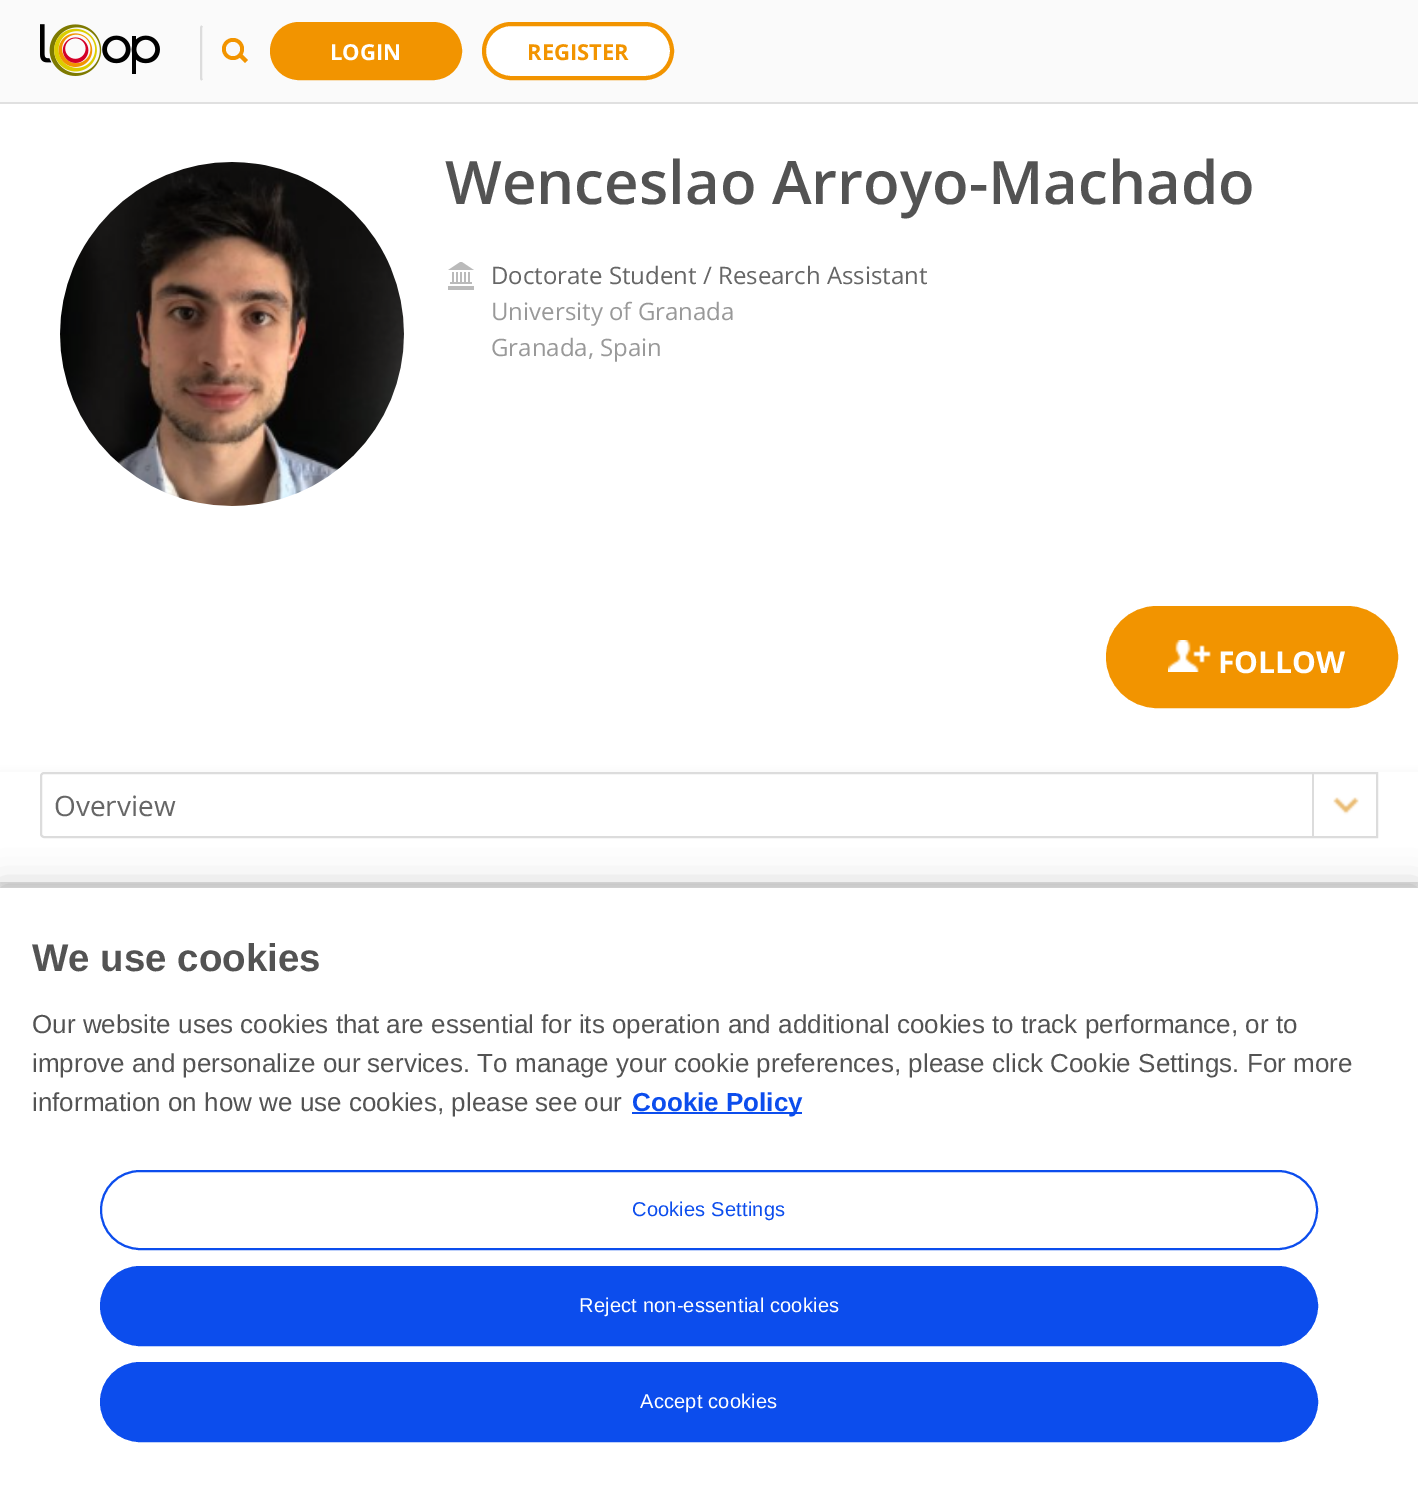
%!PS
<< /PageSize [1418 1490] /PageUsesTransparency true >> setpagedevice
/mt/moveto load def
/li/lineto load def
/ct/curveto load def
/cp/closepath load def
/fl/fill load def
/st/stroke load def
/gs/gsave load def
/gr/grestore load def
/lw/setlinewidth load def
/co { dup -16 bitshift 255 div exch dup -8 bitshift 255 and 255 div exch 255 and 255 div setrgbcolor } def
/fn { [ exch dup neg 0 0 3 -1 roll 0 0 ] selectfont } def
/tx { co fn moveto show } def
/bx { co rectfill } def
/al { dup .setfillconstantalpha .setstrokeconstantalpha } def
/ci { newpath 0 360 arc closepath } def
/rr { 5 dict begin { /r /h /w /y /x } { exch def } forall
  x r add y moveto x w add y 2 copy h add r arct x w add y h add x 1 index r arct
  x y h add x y r arct x y 2 copy exch w add exch r arct closepath end } def
/sh { 12 dict begin { /a /b /q /h /w /y /x } { exch def } forall gsave /was 0 def
  9 -2 -9 { dup b mul 4 div /e exch def 1 sub .425 mul 2.718 exch exp 1 add a .99 .min exch div /now exch def
    1 1 now sub 1 was sub div sub al /was now def
    w h .min e 2 mul add 0 gt { x e sub y e sub w e 2 mul add h e 2 mul add
      q e add b .6 mul add w h .min 2 div e add .min 0 .max rr fill } if } for grestore end } def
/im { 5 dict begin { /h /w /y /x /name } { exch def } forall
  gsave x y translate w h scale
  w h 8 [w 0 0 h 0 0] name (r) file false 3 colorimage grestore end } def
0 .pushpdf14devicefilter
0 1490 translate 1 -1 scale
4 setmiterlimit
0 0 1418 1490 16#F1F1F1 bx
0 0 1418 102 16#FAFAFA bx
0 102 1418 2 16#E0E0E0 bx
(media/1.raw) 40 24 120 52 im
16#DCDCDC co
2 lw
202 80 mt 201 78.5 li 201 27.5 li 202 26 li st
16#F29400 co
233 49 11 ci fl
16#F9F9F9 co
233 49 7 ci fl
16#F29400 co
241 53 mt 248 60 li 245 63 li 238 56 li cp fl
272 24 188 54 27 rr gs fl gr
4 lw
st
16#FFFFFF co
484 24 188 54 27 rr gs fl gr
16#F29400 co
st
0 104 1418 668 16#FFFFFF bx
(media/2.raw) 60 162 344 344 im
(media/3.raw) 448 262 26 28 im
16#F29400 co
1109 609 286 96 48 rr gs fl gr
6 lw
st
(media/4.raw) 1168 640 43 32 im
16#000000 co
0 776 1418 110 0 5 .1 sh
0 772 1418 110 16#FFFFFF bx
16#DCDCDC co
2 lw
44 773 mt 1377 773 li 1377 837 li 44 837 li 42.5 837 41 835.5 41 834 ct 41 776 li 41 774.5 42.5 773 44 773 ct cp st
(media/5.raw) 1333 797 26 18 im
1312 772 2 66 16#DCDCDC bx
16#000000 co
0 888 1418 602 0 18 .2 sh
0 888 1418 602 16#FFFFFF bx
632 1112 170 2 16#0C4DED bx
101 1171 1216 78 39 rr st
101 1267 1216 78 39 rr gs fl gr
st
101 1363 1216 78 39 rr gs fl gr
st
(LOGIN) 330 60 /OpenSans-Bold 22 16#FFFFFF tx
(REGISTER) 527 60 /OpenSans-Bold 22 16#F29400 tx
(Wenceslao Arroyo-Machado) 445 204 /OpenSans-SemiBold 60 16#535353 tx
(Doctorate Student / Research Assistant) 491 284 /OpenSans-Regular 24 16#666666 tx
(University of Granada) 491 320 /OpenSans-Regular 24 16#999999 tx
(Granada, Spain) 491 356 /OpenSans-Regular 24 16#999999 tx
(FOLLOW) 1218 673 /OpenSans-Bold 30 16#FFFFFF tx
(Overview) 54 816 /OpenSans-Regular 28 16#666666 tx
(We use cookies) 32 971 /LiberationSans-Bold 38.5 16#535353 tx
(Our website uses cookies that are essential for its operation and additional cookies to track performance, or to) 32 1033 /LiberationSans-Regular 26.02 16#535353 tx
(improve and personalize our services. To manage your cookie preferences, please click Cookie Settings. For more) 32 1072 /LiberationSans-Regular 26.02 16#535353 tx
(information on how we use cookies, please see our) 32 1111 /LiberationSans-Regular 26.02 16#535353 tx
(Cookie Policy) 632 1111 /LiberationSans-Bold 26.02 16#0C4DED tx
/LiberationSans-Regular 20 fn
632 1216 mt .2 0 (Cookies Settings) ashow
16#FFFFFF co
579 1312 mt .2 0 (Reject non-essential cookies) ashow
640 1408 mt .2 0 (Accept cookies) ashow
.poppdf14devicefilter showpage
